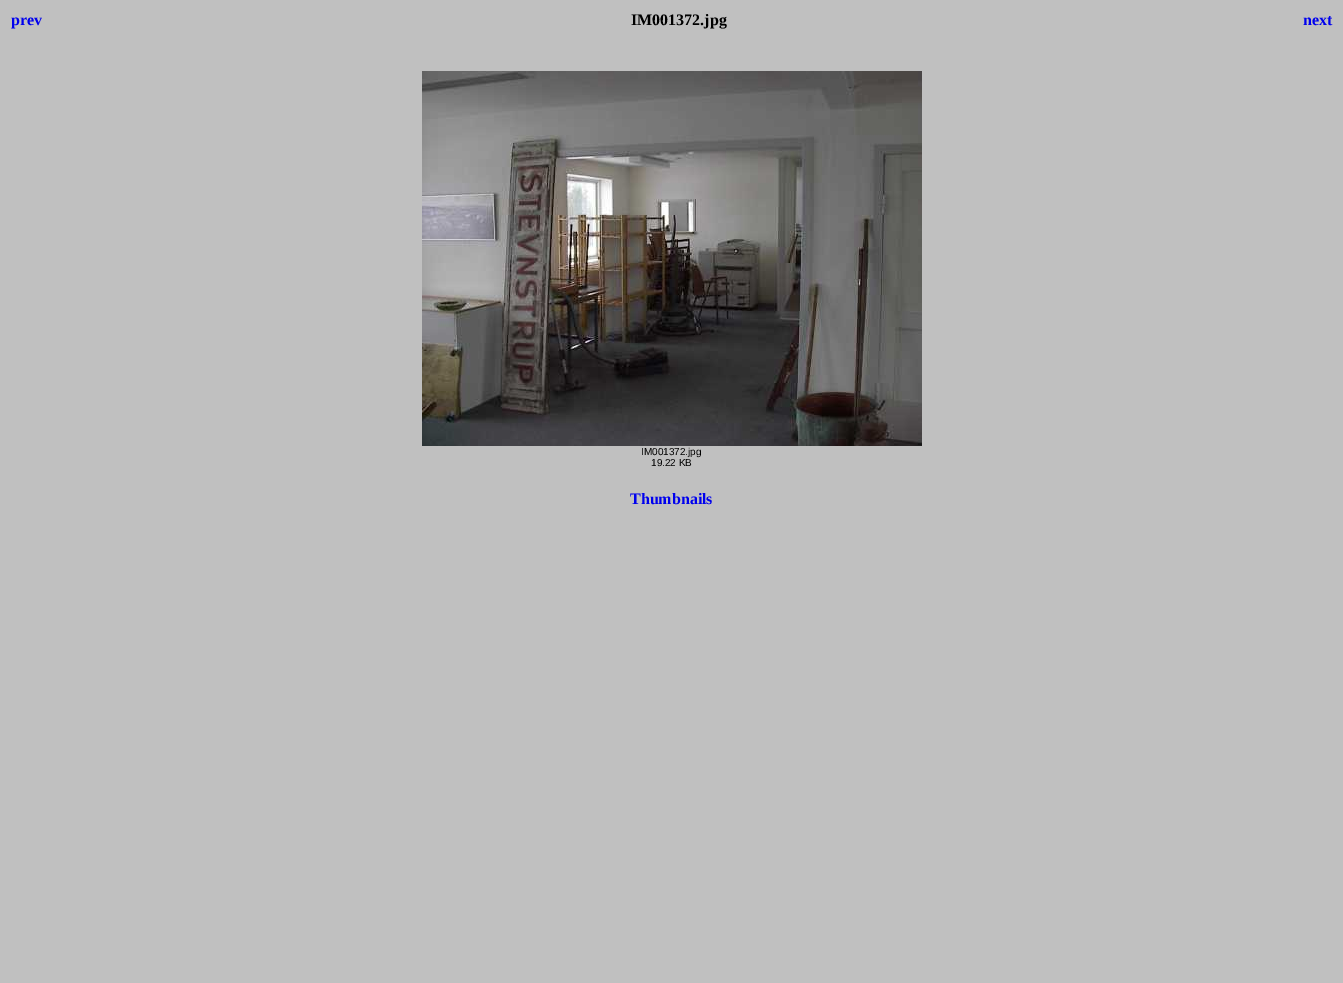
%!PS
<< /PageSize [1343 983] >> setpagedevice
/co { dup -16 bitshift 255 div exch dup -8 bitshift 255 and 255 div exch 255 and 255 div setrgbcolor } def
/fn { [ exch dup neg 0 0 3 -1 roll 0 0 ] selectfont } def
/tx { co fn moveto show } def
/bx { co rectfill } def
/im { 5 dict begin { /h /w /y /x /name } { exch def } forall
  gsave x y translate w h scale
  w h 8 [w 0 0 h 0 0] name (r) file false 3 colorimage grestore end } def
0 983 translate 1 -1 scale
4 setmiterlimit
0 0 1343 983 16#C0C0C0 bx
(media/1.raw) 422 71 500 375 im
(prev) 11 25 /LiberationSerif-Bold 16 16#0000EE tx
(IM001372.jpg) 631 25 /LiberationSerif-Bold 16 16#000000 tx
(next) 1303 25 /LiberationSerif-Bold 16 16#0000EE tx
(IM001372.jpg) 641 455 /LiberationSans-Regular 10 16#000000 tx
(19.22 KB) 651 466 /LiberationSans-Regular 10 16#000000 tx
(Thumbnails) 630 504 /LiberationSerif-Bold 16 16#0000EE tx
showpage
